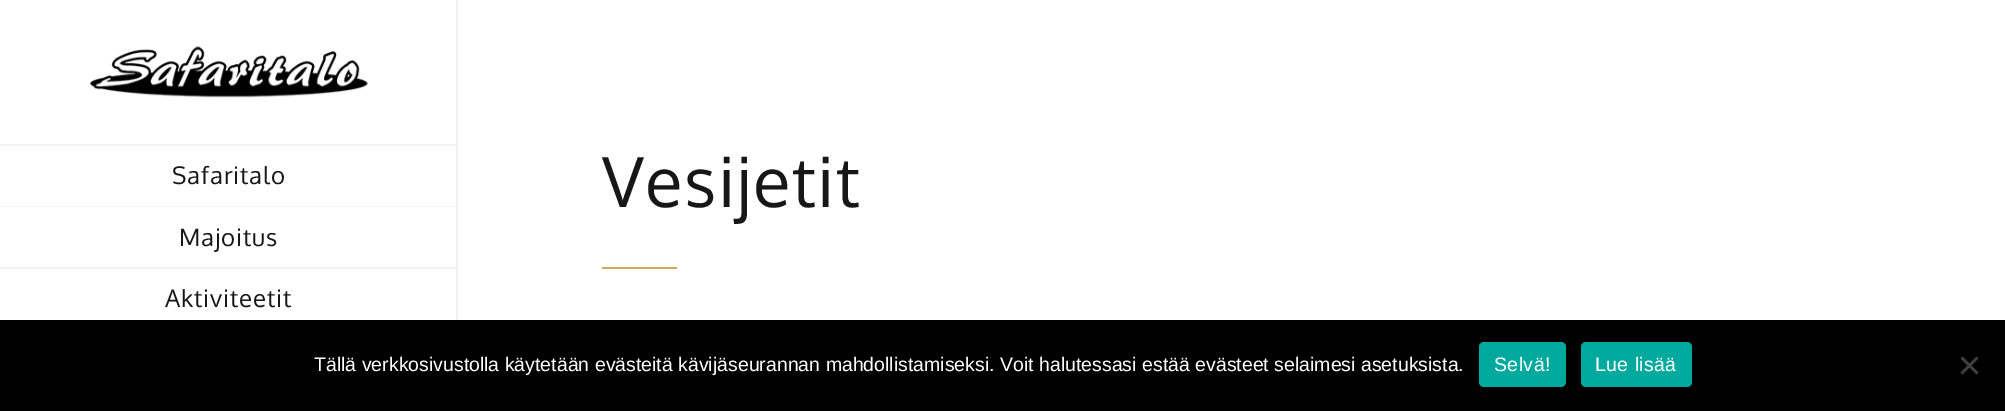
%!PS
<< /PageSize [2005 411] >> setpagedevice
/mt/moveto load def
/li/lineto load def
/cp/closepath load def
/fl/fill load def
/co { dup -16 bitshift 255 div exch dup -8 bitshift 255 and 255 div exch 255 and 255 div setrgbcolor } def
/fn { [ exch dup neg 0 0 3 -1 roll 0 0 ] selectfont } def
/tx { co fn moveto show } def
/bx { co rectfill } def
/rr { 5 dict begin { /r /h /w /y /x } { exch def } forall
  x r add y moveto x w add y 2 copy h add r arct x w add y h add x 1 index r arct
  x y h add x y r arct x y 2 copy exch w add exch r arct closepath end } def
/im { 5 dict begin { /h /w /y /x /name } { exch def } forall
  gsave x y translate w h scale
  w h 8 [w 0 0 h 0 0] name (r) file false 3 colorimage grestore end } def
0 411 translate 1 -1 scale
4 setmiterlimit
0 0 2005 411 16#FFFFFF bx
(media/1.raw) 90 46 278 52 im
456 0 2 320 16#F2F2F2 bx
0 144 458 2 16#F2F2F2 bx
0 206 458 1 16#F2F2F2 bx
0 267 458 2 16#F2F2F2 bx
602 267 75 2 16#CBAA5C bx
0 320 2005 91 16#000000 bx
16#00A99D co
1479 342 87 45 5 rr fl
1581 342 111 45 5 rr fl
16#404040 co
1976.5 356.5 mt 1978.5 358.5 li 1962.5 374.5 li 1960.5 372.5 li cp fl
1960.5 358.5 mt 1962.5 356.5 li 1978.5 372.5 li 1976.5 374.5 li cp fl
/Oxygen-Regular 24 fn
16#171717 co
172 184 mt .9 0 (Safaritalo) ashow
179 246 mt .9 0 (Majoitus) ashow
165 307 mt .9 0 (Aktiviteetit) ashow
/Oxygen-Regular 69 fn
602 207 mt 1.5 0 (Vesijetit) ashow
(Tällä verkkosivustolla käytetään evästeitä kävijäseurannan mahdollistamiseksi. Voit halutessasi estää evästeet selaimesi asetuksista.) 314 371 /LiberationSans-Regular 19.5 16#FFFFFF tx
1494 371 mt .4 0 (Selvä!) ashow
1595 371 mt .4 0 (Lue lisää) ashow
showpage
